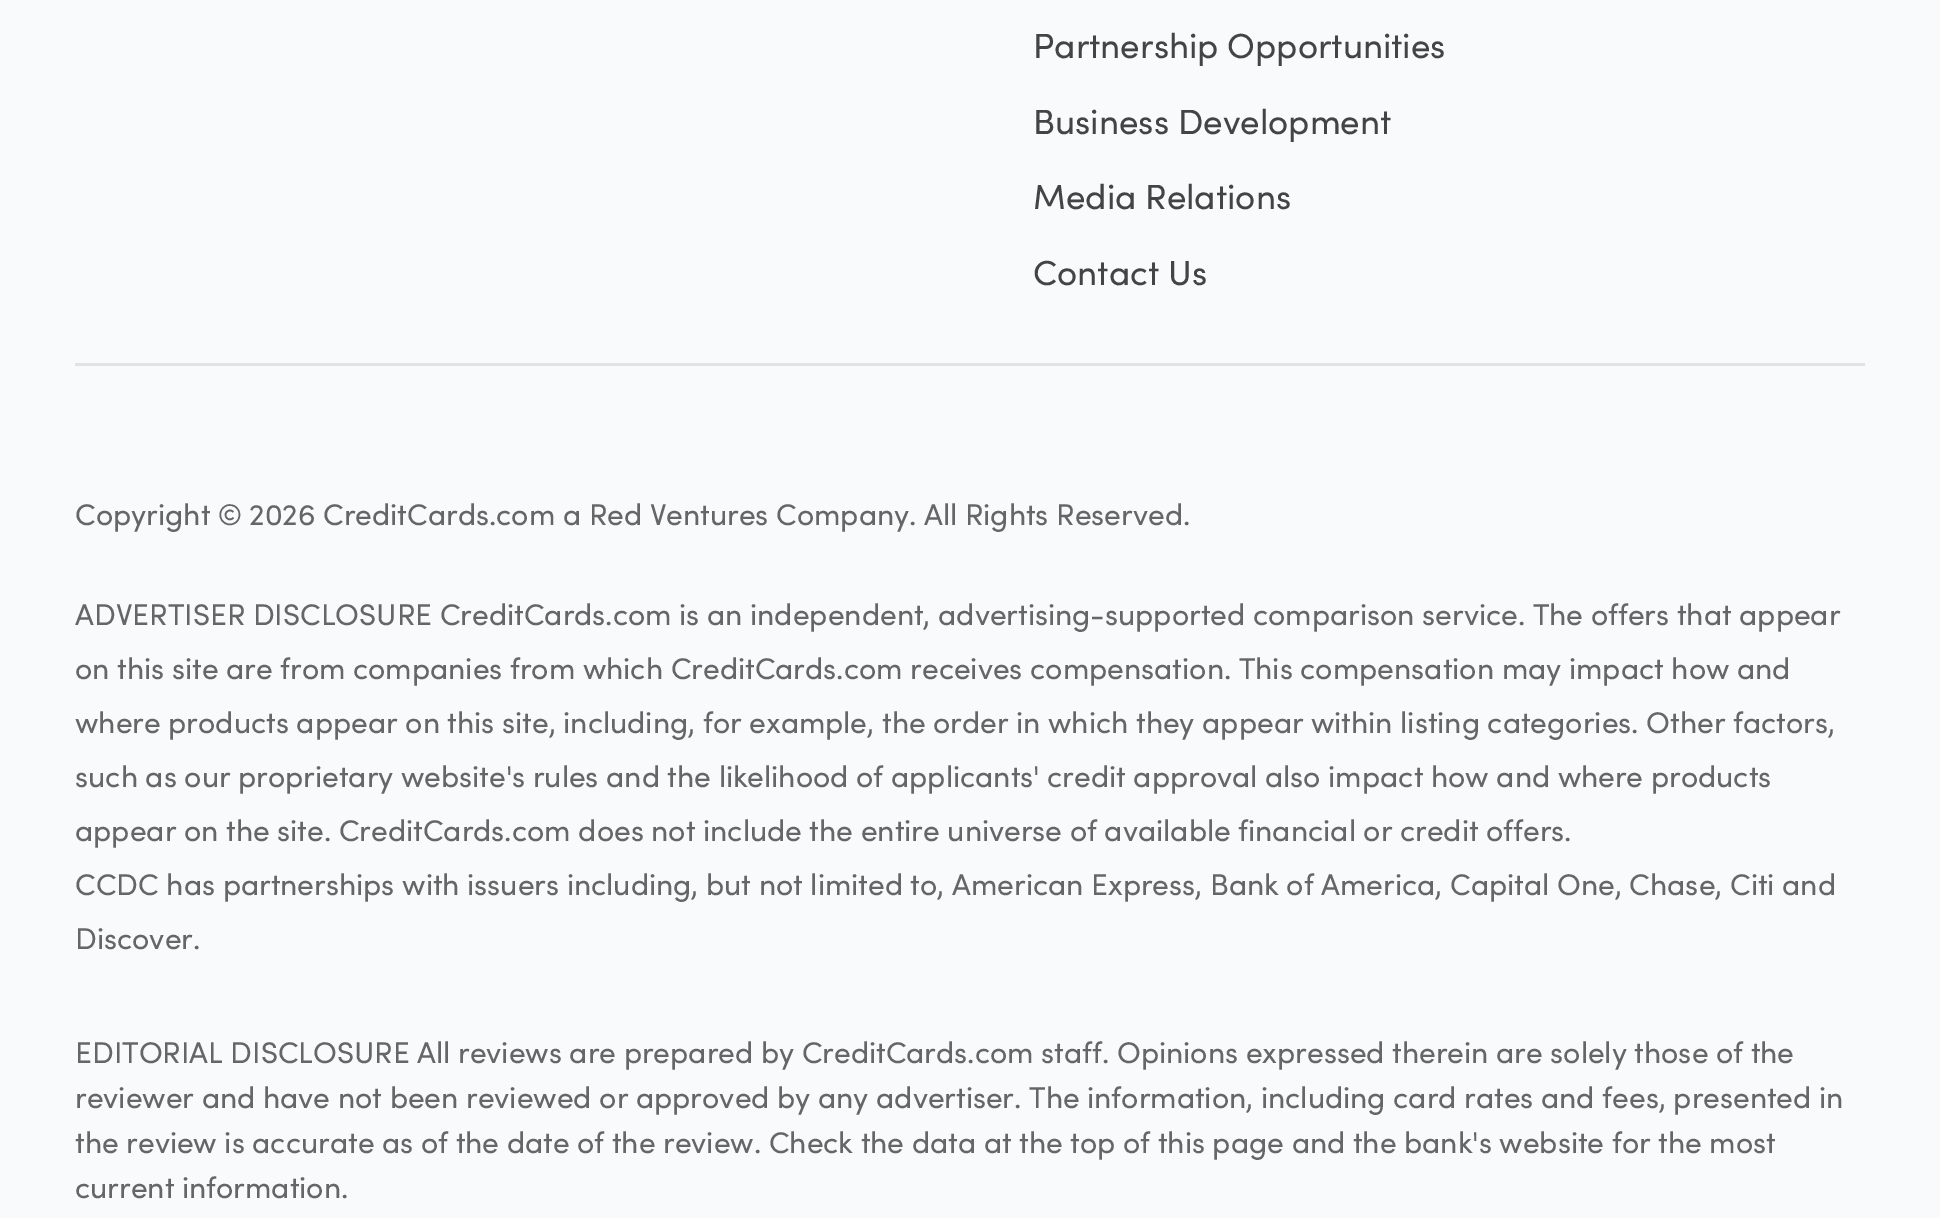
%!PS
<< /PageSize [1940 1218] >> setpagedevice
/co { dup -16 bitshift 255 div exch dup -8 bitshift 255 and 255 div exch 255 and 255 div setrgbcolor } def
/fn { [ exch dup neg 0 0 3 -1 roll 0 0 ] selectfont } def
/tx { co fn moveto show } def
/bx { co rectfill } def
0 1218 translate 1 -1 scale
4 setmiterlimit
0 0 1940 1218 16#F8FAFB bx
75 363 1790 3 16#E0E2E3 bx
(Partnership Opportunities) 1033 58 /Sofia-Regular 35 16#444444 tx
(Business Development) 1033 134 /Sofia-Regular 35 16#444444 tx
(Media Relations) 1033 209 /Sofia-Regular 35 16#444444 tx
(Contact Us) 1033 285 /Sofia-Regular 35 16#444444 tx
(Copyright © 2026 CreditCards.com a Red Ventures Company. All Rights Reserved.) 75 525 /Sofia-Regular 30 16#666666 tx
(ADVERTISER DISCLOSURE CreditCards.com is an independent, advertising-supported comparison service. The offers that appear) 75 625 /Sofia-Regular 30 16#666666 tx
(on this site are from companies from which CreditCards.com receives compensation. This compensation may impact how and) 75 679 /Sofia-Regular 30 16#666666 tx
(where products appear on this site, including, for example, the order in which they appear within listing categories. Other factors,) 75 733 /Sofia-Regular 30 16#666666 tx
(such as our proprietary website's rules and the likelihood of applicants' credit approval also impact how and where products) 75 787 /Sofia-Regular 30 16#666666 tx
(appear on the site. CreditCards.com does not include the entire universe of available financial or credit offers.) 75 841 /Sofia-Regular 30 16#666666 tx
(CCDC has partnerships with issuers including, but not limited to, American Express, Bank of America, Capital One, Chase, Citi and) 75 895 /Sofia-Regular 30 16#666666 tx
(Discover.) 75 949 /Sofia-Regular 30 16#666666 tx
(EDITORIAL DISCLOSURE All reviews are prepared by CreditCards.com staff. Opinions expressed therein are solely those of the) 75 1063 /Sofia-Regular 30 16#666666 tx
(reviewer and have not been reviewed or approved by any advertiser. The information, including card rates and fees, presented in) 75 1108 /Sofia-Regular 30 16#666666 tx
(the review is accurate as of the date of the review. Check the data at the top of this page and the bank's website for the most) 75 1153 /Sofia-Regular 30 16#666666 tx
(current information.) 75 1198 /Sofia-Regular 30 16#666666 tx
showpage
